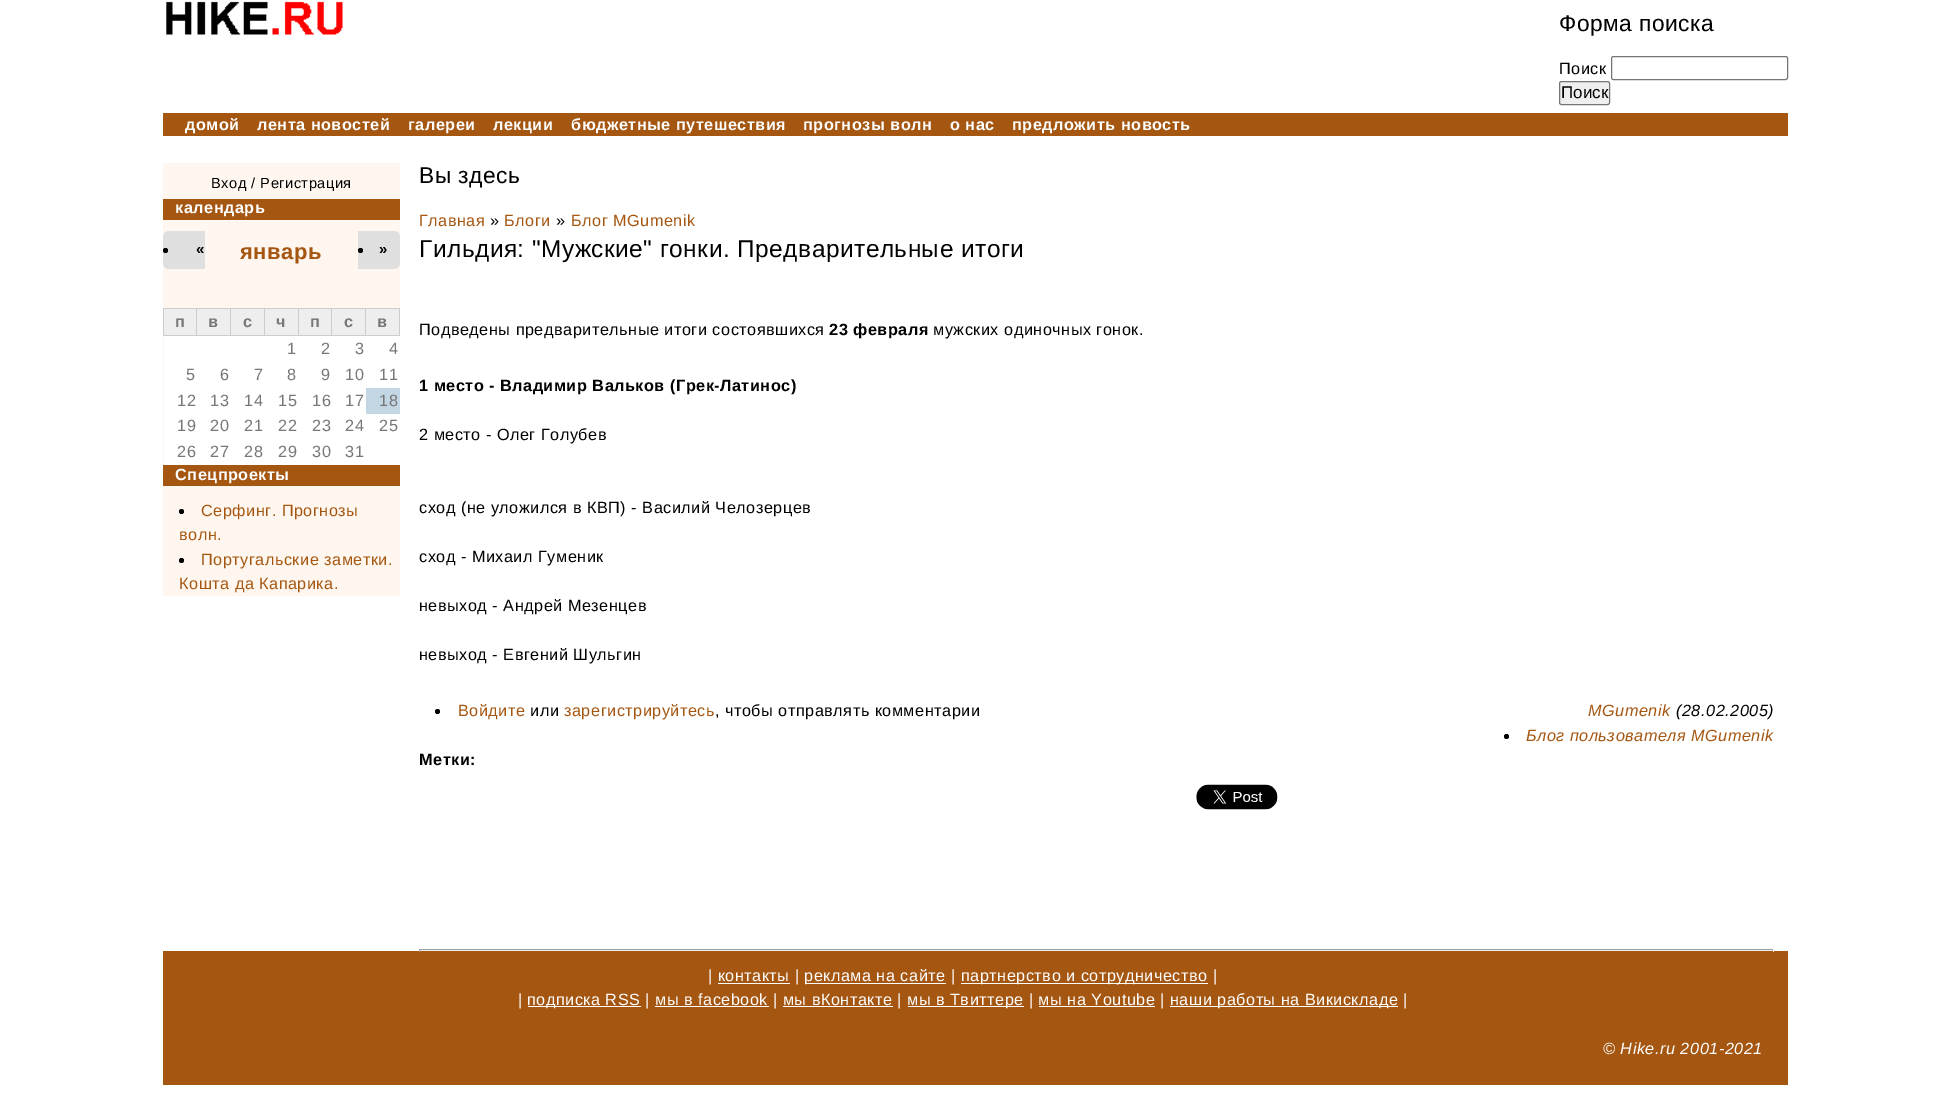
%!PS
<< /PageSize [1949 1105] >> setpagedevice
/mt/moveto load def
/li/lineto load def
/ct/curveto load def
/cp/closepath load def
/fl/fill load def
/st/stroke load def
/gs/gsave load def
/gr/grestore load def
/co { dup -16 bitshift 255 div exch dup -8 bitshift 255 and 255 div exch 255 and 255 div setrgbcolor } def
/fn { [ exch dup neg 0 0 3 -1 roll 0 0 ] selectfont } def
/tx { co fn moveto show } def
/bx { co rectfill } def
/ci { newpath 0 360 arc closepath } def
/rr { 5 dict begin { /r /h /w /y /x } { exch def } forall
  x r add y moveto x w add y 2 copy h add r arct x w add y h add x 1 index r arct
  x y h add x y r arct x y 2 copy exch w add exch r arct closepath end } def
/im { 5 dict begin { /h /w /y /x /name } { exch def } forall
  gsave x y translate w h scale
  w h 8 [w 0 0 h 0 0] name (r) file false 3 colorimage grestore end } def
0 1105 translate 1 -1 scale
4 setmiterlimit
0 0 1949 1105 16#FFFFFF bx
(media/1.raw) 166 1 177 34 im
16#767676 co
1611.5 56.5 176 23 2 rr st
16#EFEFEF co
1559.5 81.5 50 23 2 rr gs fl gr
16#767676 co
st
163 113 1625 23 16#A55711 bx
163 163 237 433 16#FFF7EF bx
163 199 237 21 16#A55711 bx
16#DFDFDF co
169 231 mt 205 231 li 205 269 li 169 269 li 165.5 269 163 266.5 163 263 ct 163 237 li 163 233.5 165.5 231 169 231 ct cp fl
16#000000 co
165.5 250.5 2.5 ci fl
16#DFDFDF co
358 231 mt 394 231 li 397.5 231 400 233.5 400 237 ct 400 263 li 400 266.5 397.5 269 394 269 ct 358 269 li cp fl
16#000000 co
360.5 250.5 2.5 ci fl
164 309 66 26 16#EEEEEE bx
365 308 35 1 16#CCCCCC bx
399 308 1 28 16#CCCCCC bx
365 335 35 1 16#CCCCCC bx
365 308 1 28 16#CCCCCC bx
331 308 35 1 16#CCCCCC bx
299 309 66 26 16#EEEEEE bx
331 335 35 1 16#CCCCCC bx
331 308 1 28 16#CCCCCC bx
298 308 35 1 16#CCCCCC bx
298 335 35 1 16#CCCCCC bx
298 308 1 28 16#CCCCCC bx
264 308 35 1 16#CCCCCC bx
264 335 35 1 16#CCCCCC bx
264 308 1 28 16#CCCCCC bx
230 308 35 1 16#CCCCCC bx
230 335 35 1 16#CCCCCC bx
230 308 1 28 16#CCCCCC bx
196 308 35 1 16#CCCCCC bx
196 335 35 1 16#CCCCCC bx
196 308 1 28 16#CCCCCC bx
163 308 35 1 16#CCCCCC bx
163 335 35 1 16#CCCCCC bx
163 308 1 28 16#CCCCCC bx
231 309 33 26 16#EEEEEE bx
265 309 33 26 16#EEEEEE bx
366 309 33 26 16#EEEEEE bx
164 336 236 52 16#FFFFFF bx
164 388 202 26 16#FFFFFF bx
366 388 34 26 16#C3D6E4 bx
164 414 236 51 16#FFFFFF bx
163 465 237 21 16#A55711 bx
16#000000 co
181.5 511.5 2.5 ci fl
181.5 560.5 2.5 ci fl
437.5 711.5 2.5 ci fl
1506.5 736.5 2.5 ci fl
(media/2.raw) 1196 784 82 26 im
419 949 1355 1 16#9F9F9F bx
163 951 1625 134 16#A55711 bx
1773 949 1 3 16#EEEEEE bx
419 950 1355 1 16#EEEEEE bx
419 949 1 3 16#9F9F9F bx
805 983 141 1 16#FFFFFF bx
961 983 247 1 16#FFFFFF bx
718 983 72 1 16#FFFFFF bx
528 1006 113 1 16#FFFFFF bx
908 1006 116 1 16#FFFFFF bx
1170 1006 228 1 16#FFFFFF bx
655 1006 114 1 16#FFFFFF bx
783 1006 110 1 16#FFFFFF bx
1039 1006 116 1 16#FFFFFF bx
/LiberationSans-Regular 22.75 fn
16#000000 co
1559 31 mt .5 0 (Форма поиска) ashow
/LiberationSans-Regular 16.25 fn
1559 74 mt .5 0 (Поиск) ashow
(Поиск) 1561 98 /LiberationSans-Regular 17 16#000000 tx
/LiberationSans-Bold 16.25 fn
16#FFFFFF co
185 130 mt .5 0 (домой) ashow
257 130 mt .5 0 (лента новостей) ashow
408 130 mt .5 0 (галереи) ashow
493 130 mt .5 0 (лекции) ashow
571 130 mt .5 0 (бюджетные путешествия) ashow
803 130 mt .5 0 (прогнозы волн) ashow
950 130 mt .5 0 (о нас) ashow
1012 130 mt .5 0 (предложить новость) ashow
/LiberationSans-Regular 14.6 fn
16#000000 co
211 188 mt .5 0 (Вход / Регистрация) ashow
/LiberationSans-Bold 16.25 fn
16#FFFFFF co
175 213 mt .5 0 (календарь) ashow
/LiberationSans-Bold 15 fn
16#000000 co
196 254 mt .5 0 («) ashow
379 254 mt .5 0 (») ashow
/LiberationSans-Bold 22 fn
16#A55711 co
240 259 mt .5 0 (январь) ashow
/LiberationSans-Bold 16.25 fn
16#777777 co
175 327 mt .5 0 (п) ashow
208 327 mt .5 0 (в) ashow
243 327 mt .5 0 (с) ashow
276 327 mt .5 0 (ч) ashow
310 327 mt .5 0 (п) ashow
344 327 mt .5 0 (с) ashow
377 327 mt .5 0 (в) ashow
/LiberationSans-Regular 16.25 fn
287 354 mt .5 0 (1) ashow
321 354 mt .5 0 (2) ashow
355 354 mt .5 0 (3) ashow
389 354 mt .5 0 (4) ashow
186 380 mt .5 0 (5) ashow
220 380 mt .5 0 (6) ashow
254 380 mt .5 0 (7) ashow
287 380 mt .5 0 (8) ashow
321 380 mt .5 0 (9) ashow
345 380 mt .5 0 (10) ashow
379 380 mt .5 0 (11) ashow
177 406 mt .5 0 (12) ashow
210 406 mt .5 0 (13) ashow
244 406 mt .5 0 (14) ashow
278 406 mt .5 0 (15) ashow
312 406 mt .5 0 (16) ashow
345 406 mt .5 0 (17) ashow
379 406 mt .5 0 (18) ashow
177 431 mt .5 0 (19) ashow
210 431 mt .5 0 (20) ashow
244 431 mt .5 0 (21) ashow
278 431 mt .5 0 (22) ashow
312 431 mt .5 0 (23) ashow
345 431 mt .5 0 (24) ashow
379 431 mt .5 0 (25) ashow
177 457 mt .5 0 (26) ashow
210 457 mt .5 0 (27) ashow
244 457 mt .5 0 (28) ashow
278 457 mt .5 0 (29) ashow
312 457 mt .5 0 (30) ashow
345 457 mt .5 0 (31) ashow
/LiberationSans-Bold 16.25 fn
16#FFFFFF co
175 480 mt .5 0 (Спецпроекты) ashow
/LiberationSans-Regular 16.25 fn
16#A55711 co
201 516 mt .5 0 (Серфинг. Прогнозы) ashow
179 540 mt .5 0 (волн.) ashow
201 565 mt .5 0 (Португальские заметки.) ashow
179 589 mt .5 0 (Кошта да Капарика.) ashow
/LiberationSans-Regular 22.75 fn
16#000000 co
419 183 mt .5 0 (Вы здесь) ashow
/LiberationSans-Regular 16.25 fn
16#A55711 co
419 226 mt .5 0 (Главная) ashow
16#000000 co
490 226 mt .5 0 (») ashow
16#A55711 co
504 226 mt .5 0 (Блоги) ashow
16#000000 co
556 226 mt .5 0 (») ashow
16#A55711 co
571 226 mt .5 0 (Блог MGumenik) ashow
/LiberationSans-Regular 24.4 fn
16#000000 co
419 257 mt .5 0 (Гильдия: "Мужские" гонки. Предварительные итоги) ashow
/LiberationSans-Regular 16.25 fn
419 335 mt .5 0 (Подведены предварительные итоги состоявшихся) ashow
/LiberationSans-Bold 16.25 fn
829 335 mt .5 0 (23 февраля) ashow
/LiberationSans-Regular 16.25 fn
933 335 mt .5 0 (мужских одиночных гонок.) ashow
/LiberationSans-Bold 16.25 fn
419 391 mt .5 0 (1 место - Владимир Вальков \(Грек-Латинос\)) ashow
/LiberationSans-Regular 16.25 fn
419 440 mt .5 0 (2 место - Олег Голубев) ashow
419 513 mt .5 0 (сход \(не уложился в КВП\) - Василий Челозерцев) ashow
419 562 mt .5 0 (сход - Михаил Гуменик) ashow
419 611 mt .5 0 (невыход - Андрей Мезенцев) ashow
419 660 mt .5 0 (невыход - Евгений Шульгин) ashow
16#A55711 co
458 716 mt .5 0 (Войдите) ashow
16#000000 co
530 716 mt .5 0 (или) ashow
16#A55711 co
564 716 mt .5 0 (зарегистрируйтесь) ashow
16#000000 co
715 716 mt .5 0 (, чтобы отправлять комментарии) ashow
/LiberationSans-Italic 16.25 fn
16#A55711 co
1588 716 mt .5 0 (MGumenik) ashow
16#000000 co
1676 716 mt .5 0 (\(28.02.2005\)) ashow
16#A55711 co
1526 741 mt .5 0 (Блог пользователя MGumenik) ashow
/LiberationSans-Bold 16.25 fn
16#000000 co
419 765 mt .5 0 (Метки:) ashow
/LiberationSans-Regular 16.25 fn
16#FFFFFF co
708 981 mt .5 0 (| контакты |) ashow
804 981 mt .5 0 (реклама на сайте |) ashow
961 981 mt .5 0 (партнерство и сотрудничество |) ashow
518 1005 mt .5 0 (|) ashow
527 1005 mt .5 0 (подписка RSS | мы в facebook | мы вКонтакте |) ashow
907 1005 mt .5 0 (мы в Твиттере | мы на Youtube |) ashow
1170 1005 mt .5 0 (наши работы на Викискладе |) ashow
/LiberationSans-Italic 16.25 fn
1603 1054 mt .5 0 (© Hike.ru 2001-2021) ashow
showpage
